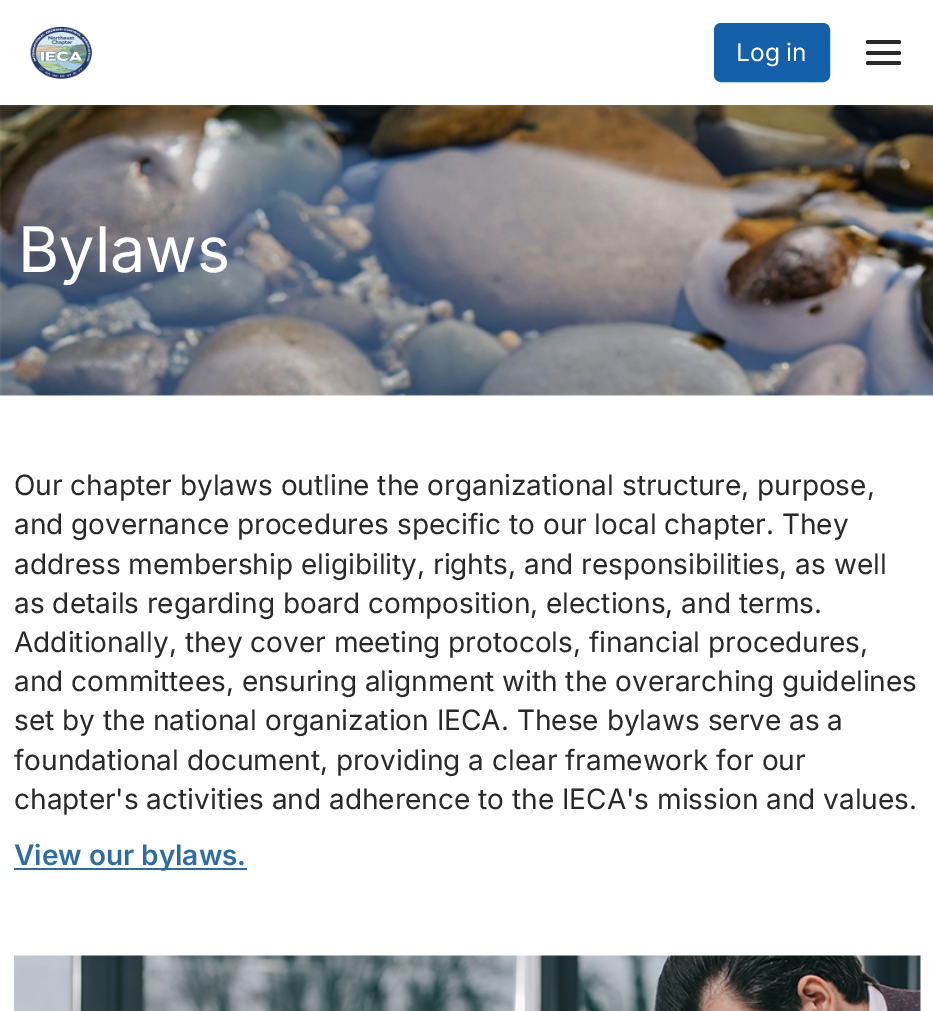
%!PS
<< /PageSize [933 1011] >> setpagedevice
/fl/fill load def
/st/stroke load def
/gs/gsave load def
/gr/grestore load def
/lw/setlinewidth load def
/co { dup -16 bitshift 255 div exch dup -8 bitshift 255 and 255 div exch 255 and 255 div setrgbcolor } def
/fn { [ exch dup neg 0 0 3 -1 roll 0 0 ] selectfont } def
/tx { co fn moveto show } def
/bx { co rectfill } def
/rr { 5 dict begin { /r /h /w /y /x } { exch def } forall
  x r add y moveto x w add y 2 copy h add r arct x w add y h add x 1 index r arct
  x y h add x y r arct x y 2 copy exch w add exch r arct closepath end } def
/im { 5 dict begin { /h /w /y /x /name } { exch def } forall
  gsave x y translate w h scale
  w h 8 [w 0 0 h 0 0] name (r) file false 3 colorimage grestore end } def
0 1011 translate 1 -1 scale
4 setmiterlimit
0 0 933 1011 16#FFFFFF bx
(media/1.raw) 30 26 62 53 im
16#1460AA co
715 24 114 57 6 rr gs fl gr
2 lw
st
16#292929 co
866 40 35 4 2 rr fl
866 51 35 4 2 rr fl
866 61 35 4 2 rr fl
(media/2.raw) 0 105 933 291 im
14 868 233 2 16#2E6DA4 bx
(media/3.raw) 14 955 907 56 im
(Log in) 736 61 /Inter-Regular 24.5 16#FFFFFF tx
(Bylaws) 18 272 /Inter-Regular 63 16#FFFFFF tx
(Our chapter bylaws outline the organizational structure, purpose,) 14 495 /Inter-Regular 28 16#292929 tx
(and governance procedures specific to our local chapter. They) 14 534 /Inter-Regular 28 16#292929 tx
(address membership eligibility, rights, and responsibilities, as well) 14 574 /Inter-Regular 28 16#292929 tx
(as details regarding board composition, elections, and terms.) 14 613 /Inter-Regular 28 16#292929 tx
(Additionally, they cover meeting protocols, financial procedures,) 14 652 /Inter-Regular 28 16#292929 tx
(and committees, ensuring alignment with the overarching guidelines) 14 691 /Inter-Regular 28 16#292929 tx
(set by the national organization IECA. These bylaws serve as a) 14 730 /Inter-Regular 28 16#292929 tx
(foundational document, providing a clear framework for our) 14 770 /Inter-Regular 28 16#292929 tx
(chapter's activities and adherence to the IECA's mission and values.) 14 809 /Inter-Regular 28 16#292929 tx
(View our bylaws.) 14 865 /Inter-SemiBold 28 16#2E6DA4 tx
showpage
